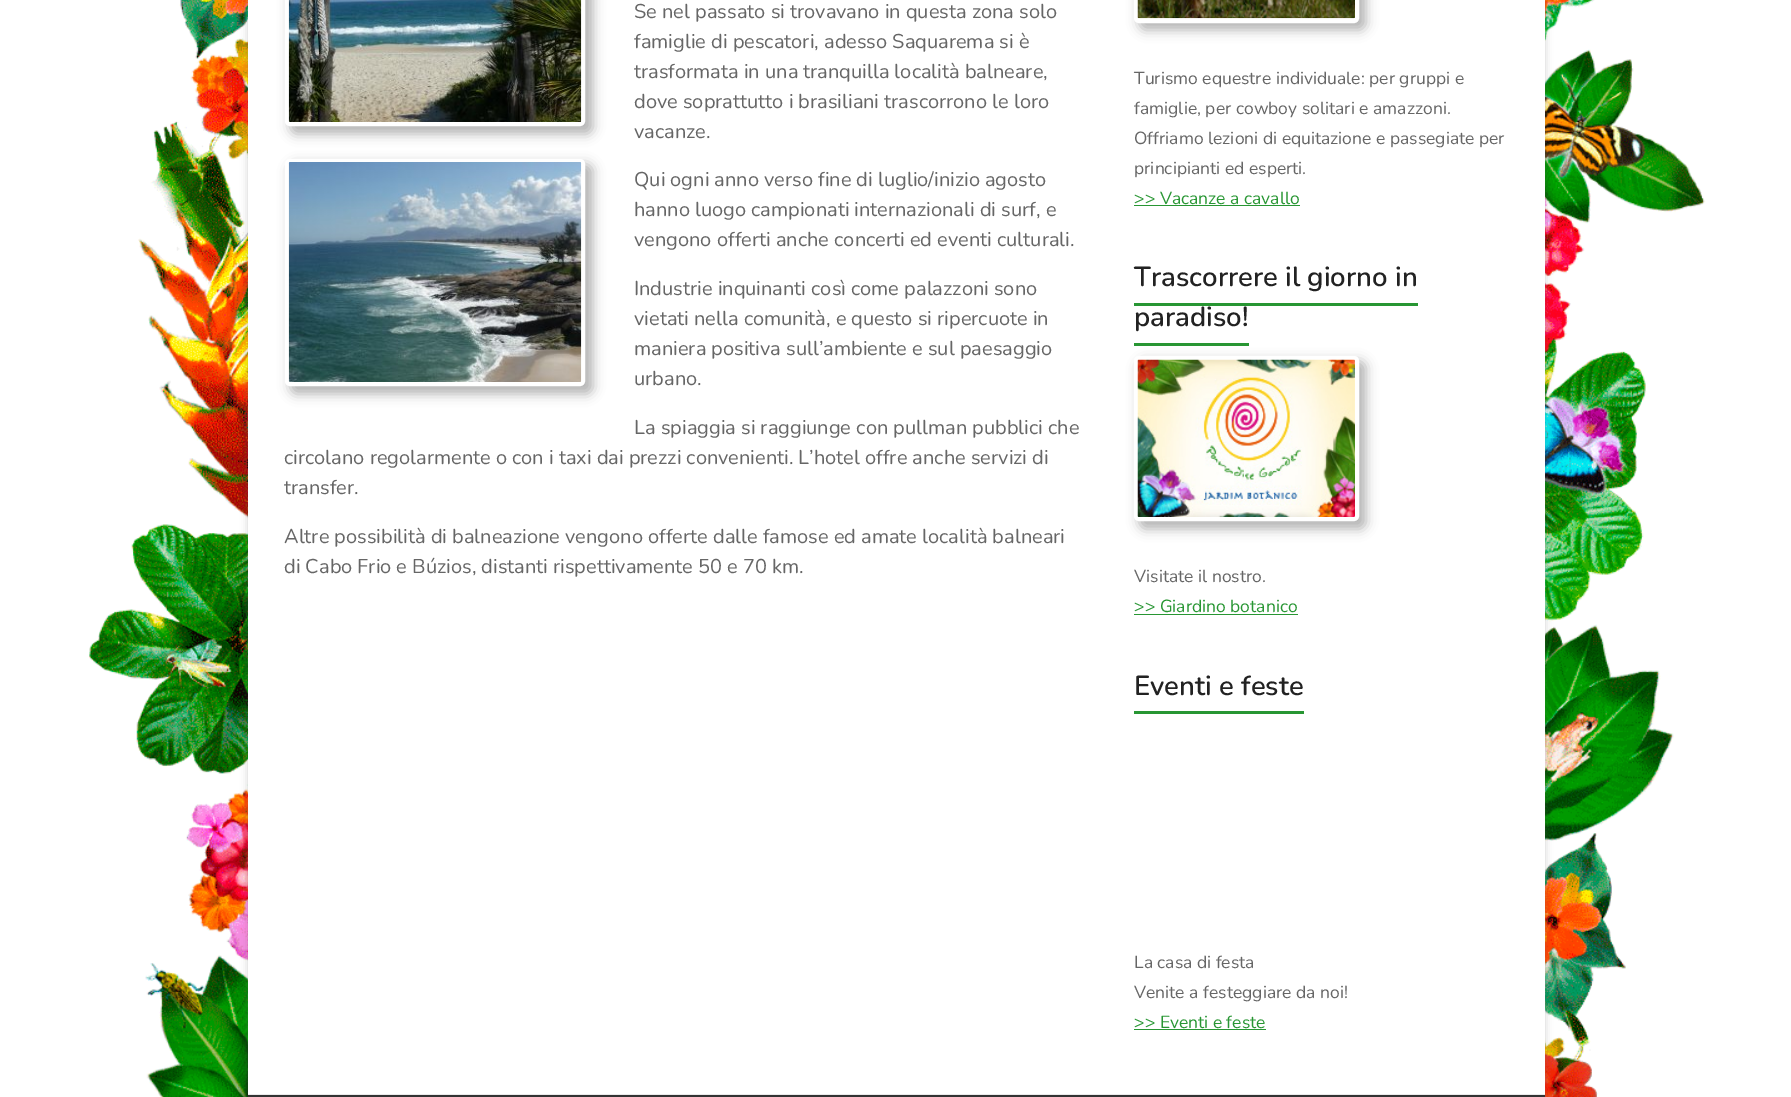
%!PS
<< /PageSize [1791 1097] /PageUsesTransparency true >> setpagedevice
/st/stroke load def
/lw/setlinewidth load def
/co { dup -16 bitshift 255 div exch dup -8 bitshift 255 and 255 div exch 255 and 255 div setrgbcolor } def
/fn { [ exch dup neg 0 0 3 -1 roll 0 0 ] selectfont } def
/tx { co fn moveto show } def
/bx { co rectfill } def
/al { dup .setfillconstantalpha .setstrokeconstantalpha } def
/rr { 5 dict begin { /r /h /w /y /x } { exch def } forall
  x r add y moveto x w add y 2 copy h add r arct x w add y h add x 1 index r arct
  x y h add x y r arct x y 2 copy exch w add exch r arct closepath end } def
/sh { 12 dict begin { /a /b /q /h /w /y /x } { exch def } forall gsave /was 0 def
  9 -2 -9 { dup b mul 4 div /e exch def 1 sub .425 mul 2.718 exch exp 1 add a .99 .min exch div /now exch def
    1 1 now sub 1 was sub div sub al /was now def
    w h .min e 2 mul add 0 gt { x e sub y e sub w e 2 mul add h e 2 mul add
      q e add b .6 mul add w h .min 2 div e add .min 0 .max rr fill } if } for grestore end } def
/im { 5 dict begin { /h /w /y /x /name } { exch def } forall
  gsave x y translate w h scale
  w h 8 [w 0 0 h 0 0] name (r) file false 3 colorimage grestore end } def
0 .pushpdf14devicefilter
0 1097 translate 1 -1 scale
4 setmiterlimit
0 0 1791 1097 16#FFFFFF bx
(media/1.raw) 0 0 1791 1097 im
16#646464 co
248 -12 1297 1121 0 4 .3 sh
248 0 1297 1094 16#FFFFFF bx
16#000000 co
290 -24 303 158 6 6 .3 sh
16#FFFFFF co
4 lw
287 -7 296 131 3 rr st
(media/2.raw) 288 0 294 122 im
16#000000 co
290 164 303 230 6 6 .3 sh
16#FFFFFF co
287 161 296 223 3 rr st
(media/3.raw) 288 162 294 220 im
16#000000 co
1139 -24 227 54 6 6 .3 sh
16#FFFFFF co
1136 -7 221 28 3 rr st
(media/4.raw) 1137 0 218 19 im
1134 205 166 1 16#289633 bx
1134 303 284 3 16#289633 bx
1134 343 115 3 16#289633 bx
16#000000 co
1139 361 227 168 6 6 .3 sh
16#FFFFFF co
1136 358 221 161 3 rr st
(media/5.raw) 1137 359 218 158 im
1134 614 164 1 16#289633 bx
1134 711 170 3 16#289633 bx
1134 1029 132 1 16#289633 bx
248 1095 1297 2 16#333333 bx
248 1094 1297 1 16#EAEAEA bx
(Se nel passato si trovavano in questa zona solo) 634 18 /Nunito-Regular 20 16#666666 tx
(famiglie di pescatori, adesso Saquarema si è) 634 48 /Nunito-Regular 20 16#666666 tx
(trasformata in una tranquilla località balneare,) 634 78 /Nunito-Regular 20 16#666666 tx
(dove soprattutto i brasiliani trascorrono le loro) 634 108 /Nunito-Regular 20 16#666666 tx
(vacanze.) 634 138 /Nunito-Regular 20 16#666666 tx
(Qui ogni anno verso fine di luglio/inizio agosto) 634 186 /Nunito-Regular 20 16#666666 tx
(hanno luogo campionati internazionali di surf, e) 634 216 /Nunito-Regular 20 16#666666 tx
(vengono offerti anche concerti ed eventi culturali.) 634 246 /Nunito-Regular 20 16#666666 tx
(Industrie inquinanti così come palazzoni sono) 634 295 /Nunito-Regular 20 16#666666 tx
(vietati nella comunità, e questo si ripercuote in) 634 325 /Nunito-Regular 20 16#666666 tx
(maniera positiva sull’ambiente e sul paesaggio) 634 355 /Nunito-Regular 20 16#666666 tx
(urbano.) 634 385 /Nunito-Regular 20 16#666666 tx
(La spiaggia si raggiunge con pullman pubblici che) 634 434 /Nunito-Regular 20 16#666666 tx
(circolano regolarmente o con i taxi dai prezzi convenienti. L’hotel offre anche servizi di) 284 464 /Nunito-Regular 20 16#666666 tx
(transfer.) 284 494 /Nunito-Regular 20 16#666666 tx
(Altre possibilità di balneazione vengono offerte dalle famose ed amate località balneari) 284 543 /Nunito-Regular 20 16#666666 tx
(di Cabo Frio e Búzios, distanti rispettivamente 50 e 70 km.) 284 573 /Nunito-Regular 20 16#666666 tx
(Turismo equestre individuale: per gruppi e) 1134 84 /Nunito-Regular 17.5 16#666666 tx
(famiglie, per cowboy solitari e amazzoni.) 1134 114 /Nunito-Regular 17.5 16#666666 tx
(Offriamo lezioni di equitazione e passegiate per) 1134 144 /Nunito-Regular 17.5 16#666666 tx
(principianti ed esperti.) 1134 174 /Nunito-Regular 17.5 16#666666 tx
(>> Vacanze a cavallo) 1134 204 /Nunito-Regular 17.5 16#289633 tx
(Trascorrere il giorno in) 1134 286 /Nunito-SemiBold 27.5 16#222222 tx
(paradiso!) 1134 326 /Nunito-SemiBold 27.5 16#222222 tx
(Visitate il nostro.) 1134 582 /Nunito-Regular 17.5 16#666666 tx
(>> Giardino botanico) 1134 612 /Nunito-Regular 17.5 16#289633 tx
(Eventi e feste) 1134 695 /Nunito-SemiBold 27.5 16#222222 tx
(La casa di festa) 1134 968 /Nunito-Regular 17.5 16#666666 tx
(Venite a festeggiare da noi!) 1134 998 /Nunito-Regular 17.5 16#666666 tx
(>> Eventi e feste) 1134 1028 /Nunito-Regular 17.5 16#289633 tx
.poppdf14devicefilter showpage
